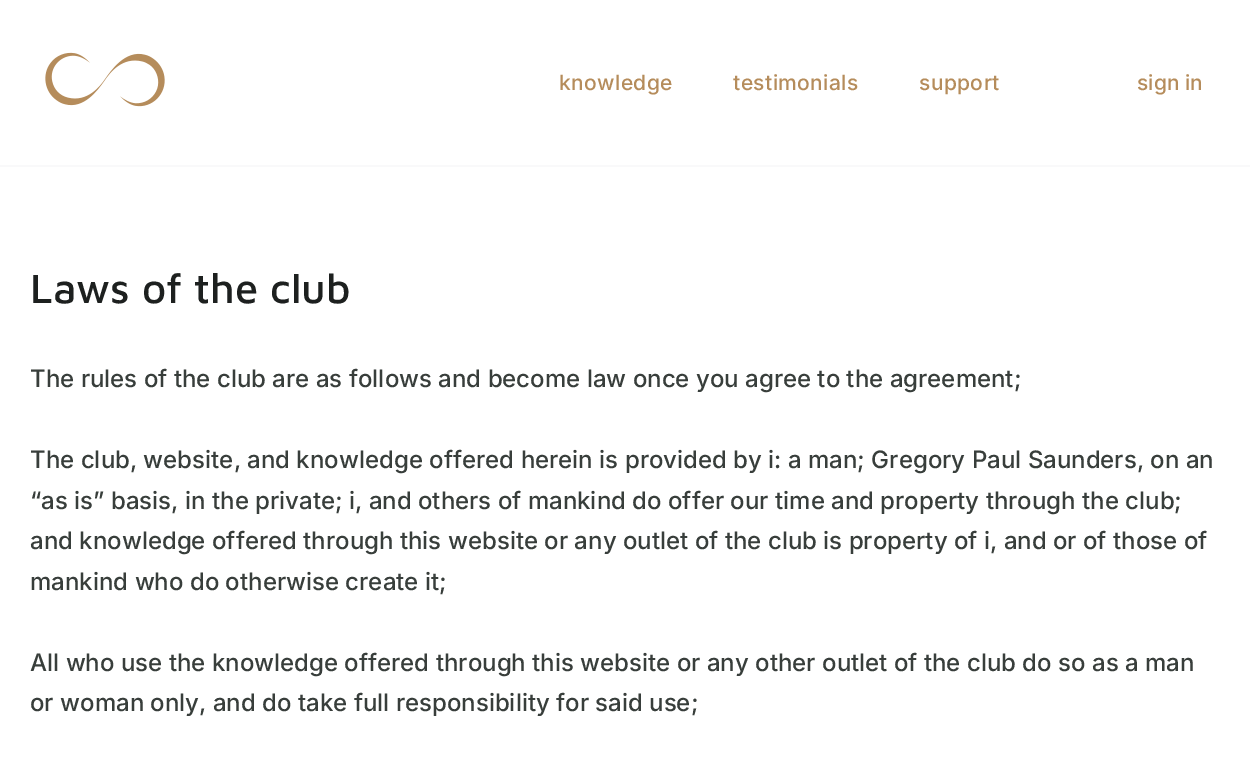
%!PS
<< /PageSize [1250 763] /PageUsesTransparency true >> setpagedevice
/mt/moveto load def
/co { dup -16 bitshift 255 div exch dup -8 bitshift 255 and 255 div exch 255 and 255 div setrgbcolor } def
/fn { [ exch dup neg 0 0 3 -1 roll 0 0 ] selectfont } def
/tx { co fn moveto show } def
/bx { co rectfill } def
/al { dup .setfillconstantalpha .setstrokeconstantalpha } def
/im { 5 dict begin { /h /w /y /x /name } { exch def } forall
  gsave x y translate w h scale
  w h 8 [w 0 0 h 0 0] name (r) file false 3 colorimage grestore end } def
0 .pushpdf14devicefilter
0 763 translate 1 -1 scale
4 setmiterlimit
0 0 1250 763 16#FFFFFF bx
0.05 al
0 165 1250 2 16#8B8D9D bx
1 al
(media/1.raw) 45 52 120 55 im
/Inter-Medium 21 fn
16#B58C5B co
559 90 mt .4 0 (knowledge) ashow
733 90 mt .4 0 (testimonials) ashow
919 90 mt .4 0 (support) ashow
(sign in) 1137 90 /Inter-Medium 21 16#B58C5B tx
(Laws of the club) 30 303 /MavenPro-Medium 42 16#1D201F tx
(The rules of the club are as follows and become law once you agree to the agreement;) 30 387 /Inter-Medium 24 16#383E3B tx
(The club, website, and knowledge offered herein is provided by i: a man; Gregory Paul Saunders, on an) 30 468 /Inter-Medium 24 16#383E3B tx
(“as is” basis, in the private; i, and others of mankind do offer our time and property through the club;) 30 509 /Inter-Medium 24 16#383E3B tx
(and knowledge offered through this website or any outlet of the club is property of i, and or of those of) 30 549 /Inter-Medium 24 16#383E3B tx
(mankind who do otherwise create it;) 30 590 /Inter-Medium 24 16#383E3B tx
(All who use the knowledge offered through this website or any other outlet of the club do so as a man) 30 671 /Inter-Medium 24 16#383E3B tx
(or woman only, and do take full responsibility for said use;) 30 711 /Inter-Medium 24 16#383E3B tx
.poppdf14devicefilter showpage
